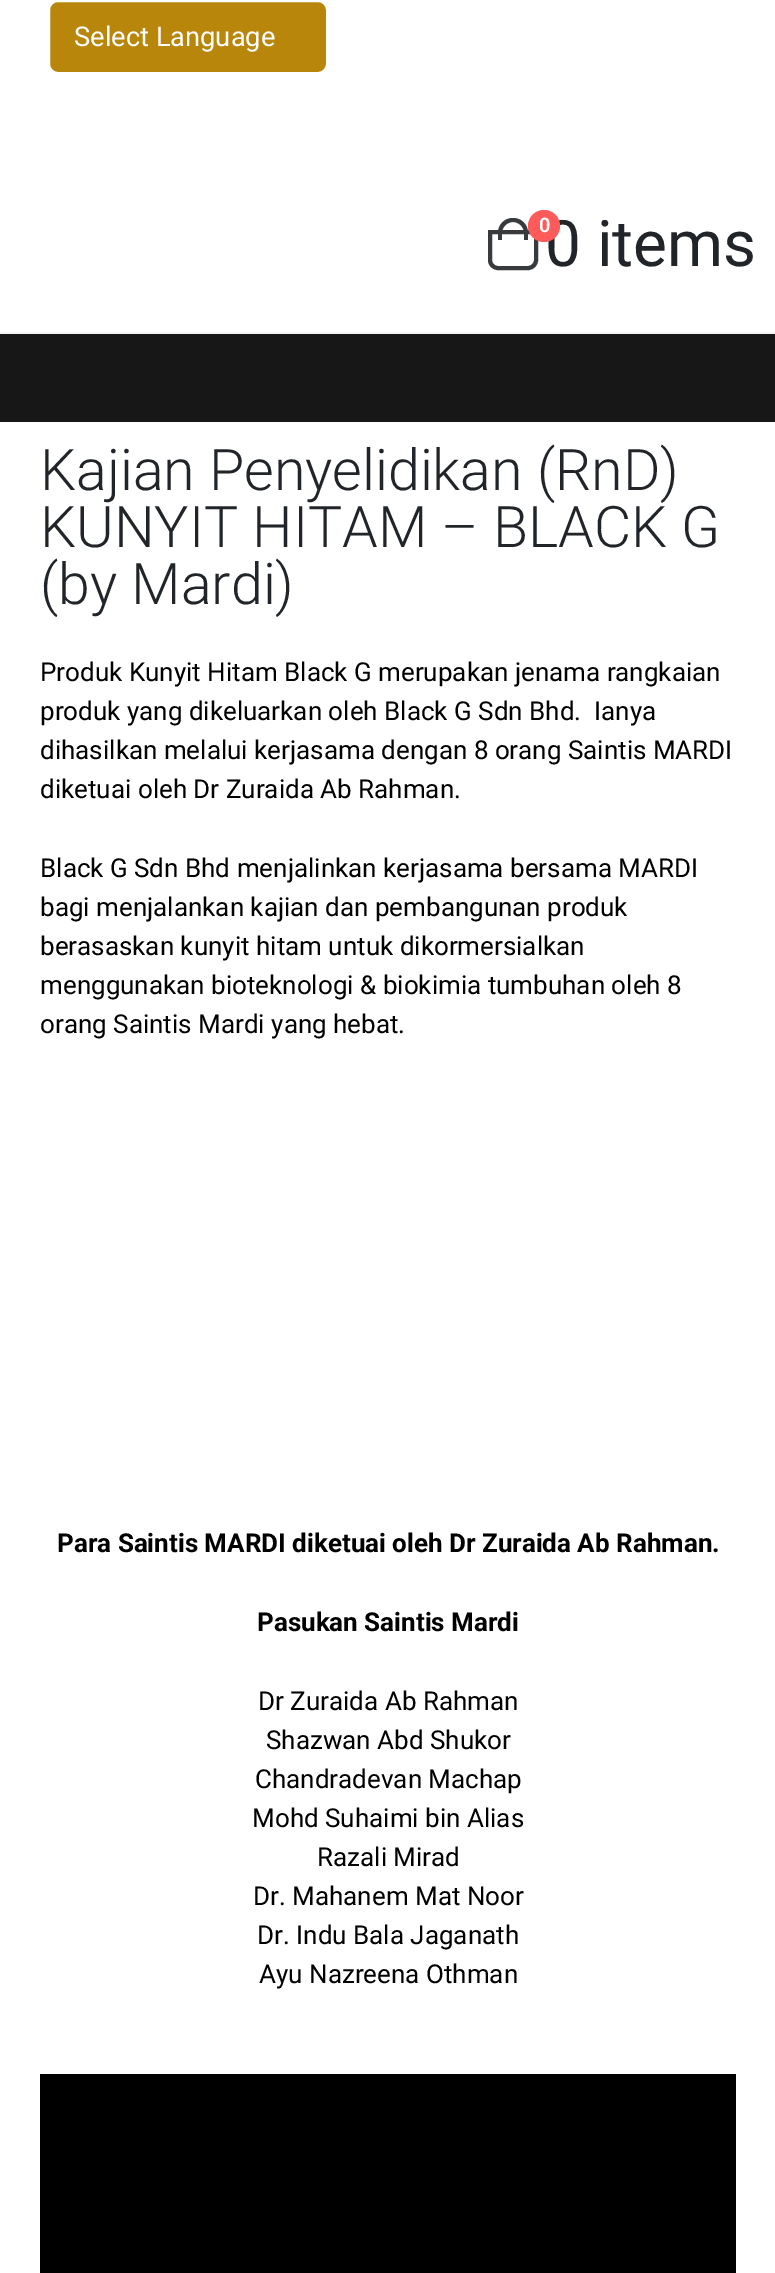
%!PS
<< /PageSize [775 2273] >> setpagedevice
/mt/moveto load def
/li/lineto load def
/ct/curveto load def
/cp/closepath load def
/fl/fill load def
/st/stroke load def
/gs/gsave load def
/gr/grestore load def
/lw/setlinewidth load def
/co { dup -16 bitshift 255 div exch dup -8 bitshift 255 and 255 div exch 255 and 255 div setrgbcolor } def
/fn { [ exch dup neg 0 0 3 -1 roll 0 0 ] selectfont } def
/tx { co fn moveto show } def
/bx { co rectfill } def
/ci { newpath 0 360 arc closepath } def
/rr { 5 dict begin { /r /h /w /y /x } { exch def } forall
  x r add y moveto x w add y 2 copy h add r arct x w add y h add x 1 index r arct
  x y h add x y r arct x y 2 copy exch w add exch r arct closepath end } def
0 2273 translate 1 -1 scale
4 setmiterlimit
0 0 775 2273 16#FFFFFF bx
0 332 775 2 16#F4F4F4 bx
16#B8860B co
49 1 278 72 9 rr gs fl gr
16#FFFFFF co
2 lw
st
16#383B3E co
4 lw
490 232 mt 536 232 li 536 260 li 536 264.5 532.5 268 528 268 ct 498 268 li 493.5 268 490 264.5 490 260 ct cp st
513 218 mt 521.5 218 528 224.5 528 233 ct 528 240 li 498 240 li 498 233 li 498 224.5 504.5 218 513 218 ct cp 513 222 mt 519 222 524 227 524 233 ct 524 240 li 502 240 li 502 233 li 502 227 507 222 513 222 ct cp eofill
0 334 775 88 16#171717 bx
40 2074 696 199 16#000000 bx
(Select Language) 74 46 /Roboto-Regular 27.25 16#FFFFFF tx
(0 items) 545 266 /Roboto-Regular 64 16#212529 tx
16#FF5B5B co
544 226 16 ci fl
(0) 539 232 /Roboto-SemiBold 20 16#FFFFFF tx
(Kajian Penyelidikan \(RnD\)) 40 490 /Roboto-Light 57.25 16#212529 tx
(KUNYIT HITAM – BLACK G) 40 547 /Roboto-Light 57.25 16#212529 tx
(\(by Mardi\)) 40 604 /Roboto-Light 57.25 16#212529 tx
(Produk Kunyit Hitam Black G merupakan jenama rangkaian) 40 681 /Roboto-Regular 26 16#000000 tx
(produk yang dikeluarkan oleh Black G Sdn Bhd.  Ianya) 40 720 /Roboto-Regular 26 16#000000 tx
(dihasilkan melalui kerjasama dengan 8 orang Saintis MARDI) 40 759 /Roboto-Regular 26 16#000000 tx
(diketuai oleh Dr Zuraida Ab Rahman.) 40 798 /Roboto-Regular 26 16#000000 tx
(Black G Sdn Bhd menjalinkan kerjasama bersama MARDI) 40 877 /Roboto-Regular 26 16#000000 tx
(bagi menjalankan kajian dan pembangunan produk) 40 916 /Roboto-Regular 26 16#000000 tx
(berasaskan kunyit hitam untuk dikormersialkan) 40 955 /Roboto-Regular 26 16#000000 tx
(menggunakan bioteknologi & biokimia tumbuhan oleh 8) 40 994 /Roboto-Regular 26 16#000000 tx
(orang Saintis Mardi yang hebat.) 40 1033 /Roboto-Regular 26 16#000000 tx
(Para Saintis MARDI diketuai oleh Dr Zuraida Ab Rahman.) 57 1552 /Roboto-Bold 26 16#000000 tx
(Pasukan Saintis Mardi) 257 1631 /Roboto-Bold 26 16#000000 tx
(Dr Zuraida Ab Rahman) 258 1710 /Roboto-Regular 26 16#000000 tx
(Shazwan Abd Shukor) 266 1749 /Roboto-Regular 26 16#000000 tx
(Chandradevan Machap) 255 1788 /Roboto-Regular 26 16#000000 tx
(Mohd Suhaimi bin Alias) 252 1827 /Roboto-Regular 26 16#000000 tx
(Razali Mirad) 317 1866 /Roboto-Regular 26 16#000000 tx
(Dr. Mahanem Mat Noor) 253 1905 /Roboto-Regular 26 16#000000 tx
(Dr. Indu Bala Jaganath) 257 1944 /Roboto-Regular 26 16#000000 tx
(Ayu Nazreena Othman) 259 1983 /Roboto-Regular 26 16#000000 tx
showpage
